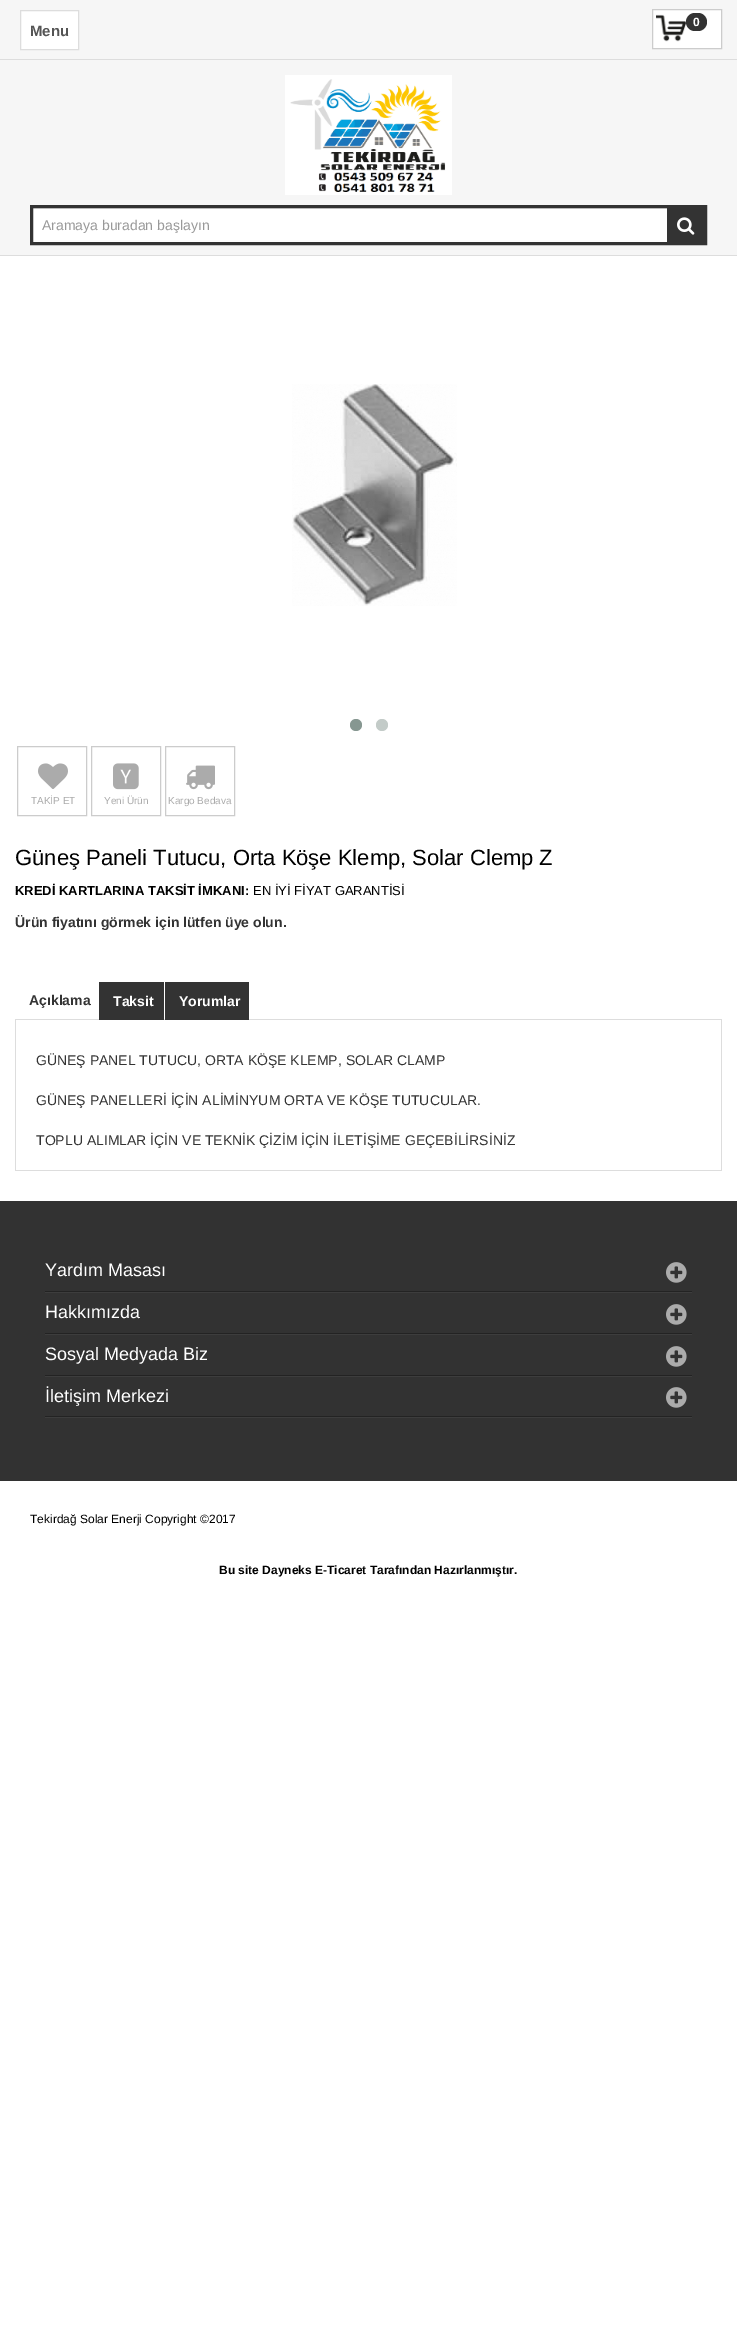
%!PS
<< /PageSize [737 2327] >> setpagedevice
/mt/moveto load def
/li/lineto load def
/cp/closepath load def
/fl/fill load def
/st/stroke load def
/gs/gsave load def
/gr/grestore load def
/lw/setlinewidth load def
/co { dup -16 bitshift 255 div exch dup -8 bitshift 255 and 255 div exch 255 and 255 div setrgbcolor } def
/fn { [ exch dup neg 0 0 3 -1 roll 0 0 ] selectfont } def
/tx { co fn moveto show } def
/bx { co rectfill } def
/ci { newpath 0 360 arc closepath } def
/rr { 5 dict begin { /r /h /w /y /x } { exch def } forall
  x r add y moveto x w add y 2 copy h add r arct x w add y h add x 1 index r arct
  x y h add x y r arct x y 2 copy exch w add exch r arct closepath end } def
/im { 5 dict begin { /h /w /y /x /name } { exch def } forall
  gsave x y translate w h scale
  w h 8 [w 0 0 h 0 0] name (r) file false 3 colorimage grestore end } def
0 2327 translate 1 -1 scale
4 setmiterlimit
0 0 737 2327 16#FFFFFF bx
0 0 737 59 16#F6F6F6 bx
0 59 737 1 16#DDDDDD bx
16#FFFFFF co
652.5 9.5 mt 721.5 9.5 li 721.5 48.5 li 652.5 48.5 li cp gs fl gr
16#CCCCCC co
st
(media/1.raw) 656 14 30 28 im
16#333333 co
686 13 21 18 9 rr fl
16#FFFFFF co
20.5 10.5 mt 78.5 10.5 li 78.5 49.5 li 20.5 49.5 li cp gs fl gr
16#DDDDDD co
st
0 60 737 195 16#F6F6F6 bx
0 255 737 1 16#DDDDDD bx
(media/2.raw) 285 75 167 120 im
33 209 634 33 16#FFFFFF bx
33 208 634 1 16#ECECEC bx
16#333333 co
3 lw
31.5 206.5 674 37 rectstroke
667 208 37 34 16#333333 bx
(media/3.raw) 677 217 18 18 im
(media/4.raw) 292 384 165 222 im
16#869791 co
356 725 6 ci fl
16#C3CBC8 co
382 725 6 ci fl
16#CCCCCC co
1 lw
17.5 746.5 69 69 rectstroke
(media/5.raw) 38 763 30 26 im
91.5 746.5 69 69 rectstroke
(media/6.raw) 113 763 26 27 im
165.5 746.5 69 69 rectstroke
(media/7.raw) 186 765 29 25 im
15 1019 707 1 16#DDDDDD bx
99 982 65 38 16#333333 bx
165 982 84 38 16#333333 bx
721 1020 1 151 16#DDDDDD bx
15 1170 707 1 16#DDDDDD bx
15 1020 1 151 16#DDDDDD bx
0 1201 737 280 16#323232 bx
(media/8.raw) 666 1262 21 21 im
45 1291 647 1 16#232323 bx
45 1292 647 1 16#3D3D3D bx
(media/8.raw) 666 1304 21 21 im
45 1333 647 1 16#232323 bx
45 1334 647 1 16#3D3D3D bx
(media/8.raw) 666 1346 21 21 im
45 1375 647 1 16#232323 bx
45 1376 647 1 16#3D3D3D bx
(media/8.raw) 666 1387 21 21 im
45 1416 647 1 16#232323 bx
45 1417 647 1 16#3D3D3D bx
(0) 693 26 /LiberationSans-Bold 12 16#FFFFFF tx
(Menu) 30 36 /LiberationSans-Bold 15 16#555555 tx
(Aramaya buradan başlayın) 42 230 /LiberationSans-Regular 14 16#999999 tx
(TAKİP ET) 31 804 /LiberationSans-Regular 10 16#ABABAB tx
(Yeni Ürün) 104 804 /LiberationSans-Regular 10 16#ABABAB tx
(Kargo Bedava) 168 804 /LiberationSans-Regular 10 16#ABABAB tx
(Güneş Paneli Tutucu, Orta Köşe Klemp, Solar Clemp Z) 15 865 /LiberationSans-Regular 22 16#000000 tx
(KREDİ KARTLARINA TAKSİT İMKANI:) 15 895 /LiberationSans-Bold 13 16#000000 tx
(EN İYİ FİYAT GARANTİSİ) 253 895 /LiberationSans-Regular 13 16#000000 tx
(Ürün fiyatını görmek için lütfen üye olun.) 15 927 /LiberationSans-Bold 14 16#333333 tx
(Açıklama) 29 1005 /LiberationSans-Bold 14 16#333333 tx
(Taksit) 113 1006 /LiberationSans-Bold 14 16#FFFFFF tx
(Yorumlar) 179 1006 /LiberationSans-Bold 14 16#FFFFFF tx
(GÜNEŞ PANEL TUTUCU, ORTA KÖŞE KLEMP, SOLAR CLAMP) 36 1065 /LiberationSans-Regular 14 16#333333 tx
(GÜNEŞ PANELLERİ İÇİN ALİMİNYUM ORTA VE KÖŞE TUTUCULAR.) 36 1105 /LiberationSans-Regular 14 16#333333 tx
(TOPLU ALIMLAR İÇİN VE TEKNİK ÇİZİM İÇİN İLETİŞİME GEÇEBİLİRSİNİZ) 36 1145 /LiberationSans-Regular 14 16#333333 tx
(Yardım Masası) 45 1276 /LiberationSans-Regular 18 16#FFFFFF tx
(Hakkımızda) 45 1318 /LiberationSans-Regular 18 16#FFFFFF tx
(Sosyal Medyada Biz) 45 1360 /LiberationSans-Regular 18 16#FFFFFF tx
(İletişim Merkezi) 45 1402 /LiberationSans-Regular 18 16#FFFFFF tx
(Tekirdağ Solar Enerji Copyright ©2017) 30 1523 /LiberationSans-Regular 12 16#000000 tx
(Bu site Dayneks E-Ticaret Tarafından Hazırlanmıştır.) 219 1574 /LiberationSans-Bold 12 16#000000 tx
showpage
